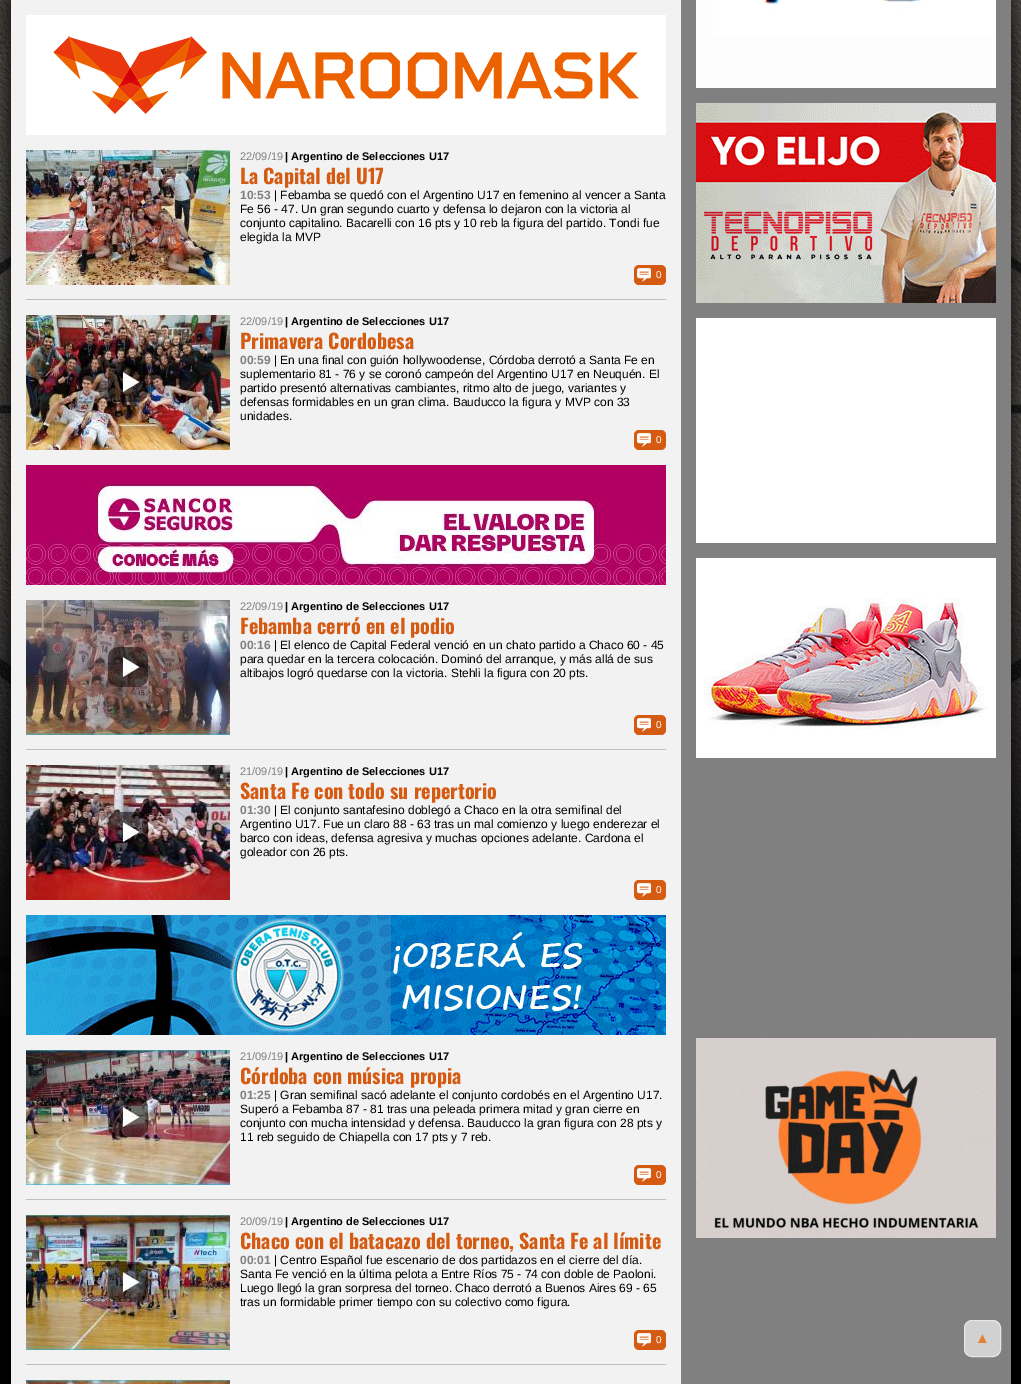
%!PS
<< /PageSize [1021 1384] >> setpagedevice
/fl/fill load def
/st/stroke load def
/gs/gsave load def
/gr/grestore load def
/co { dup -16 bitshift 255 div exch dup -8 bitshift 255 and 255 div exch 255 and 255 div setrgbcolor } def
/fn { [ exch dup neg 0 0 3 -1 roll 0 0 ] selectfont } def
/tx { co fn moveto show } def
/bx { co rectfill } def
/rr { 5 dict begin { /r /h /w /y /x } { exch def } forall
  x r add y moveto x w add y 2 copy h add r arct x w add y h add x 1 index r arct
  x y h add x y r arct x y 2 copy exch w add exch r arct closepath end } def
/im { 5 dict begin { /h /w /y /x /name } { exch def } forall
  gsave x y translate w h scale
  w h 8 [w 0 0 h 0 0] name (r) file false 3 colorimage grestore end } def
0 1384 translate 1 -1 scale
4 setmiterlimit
0 0 1021 1384 16#000000 bx
(media/1.raw) 0 0 1021 1016 im
11 0 670 1384 16#F2F2F2 bx
(media/2.raw) 26 15 640 120 im
(media/3.raw) 26 150 204 135 im
16#D55B13 co
634 265 32 20 5 rr fl
(media/4.raw) 637 268 14 14 im
26 299 640 1 16#BFBFBF bx
(media/5.raw) 26 315 204 135 im
16#D55B13 co
634 430 32 20 5 rr fl
(media/4.raw) 637 433 14 14 im
(media/6.raw) 26 465 640 120 im
(media/7.raw) 26 600 204 135 im
634 715 32 20 5 rr fl
(media/4.raw) 637 718 14 14 im
26 749 640 1 16#BFBFBF bx
(media/8.raw) 26 765 204 135 im
16#D55B13 co
634 880 32 20 5 rr fl
(media/4.raw) 637 883 14 14 im
(media/9.raw) 26 915 640 120 im
(media/10.raw) 26 1050 204 135 im
634 1165 32 20 5 rr fl
(media/4.raw) 637 1168 14 14 im
26 1199 640 1 16#BFBFBF bx
(media/11.raw) 26 1215 204 135 im
16#D55B13 co
634 1330 32 20 5 rr fl
(media/4.raw) 637 1333 14 14 im
26 1364 640 1 16#BFBFBF bx
(media/12.raw) 26 1380 204 4 im
681 0 330 1384 16#808080 bx
(media/13.raw) 696 0 300 88 im
(media/14.raw) 696 103 300 200 im
696 318 300 225 16#FFFFFF bx
(media/15.raw) 696 558 300 200 im
(media/16.raw) 696 1038 300 200 im
16#D1D1D1 co
964.5 1320.5 36 36 7.5 rr gs fl gr
16#E6E6E6 co
st
(22/09/19) 240 160 /LiberationSans-Regular 11 16#808080 tx
(| Argentino de Selecciones U17) 285 160 /LiberationSans-Bold 11 16#000000 tx
(La Capital del U17) 240 184 /Oswald-Bold 20 16#D55B13 tx
(10:53) 240 199 /LiberationSans-Bold 12 16#808080 tx
(| Febamba se quedó con el Argentino U17 en femenino al vencer a Santa) 274 199 /LiberationSans-Regular 12 16#000000 tx
(Fe 56 - 47. Un gran segundo cuarto y defensa lo dejaron con la victoria al) 240 213 /LiberationSans-Regular 12 16#000000 tx
(conjunto capitalino. Bacarelli con 16 pts y 10 reb la figura del partido. Tondi fue) 240 227 /LiberationSans-Regular 12 16#000000 tx
(elegida la MVP) 240 241 /LiberationSans-Regular 12 16#000000 tx
(0) 656 278 /LiberationSans-Regular 10 16#FFFFFF tx
(22/09/19) 240 325 /LiberationSans-Regular 11 16#808080 tx
(| Argentino de Selecciones U17) 285 325 /LiberationSans-Bold 11 16#000000 tx
(Primavera Cordobesa) 240 349 /Oswald-Bold 20 16#D55B13 tx
(00:59) 240 364 /LiberationSans-Bold 12 16#808080 tx
(| En una final con guión hollywoodense, Córdoba derrotó a Santa Fe en) 274 364 /LiberationSans-Regular 12 16#000000 tx
(suplementario 81 - 76 y se coronó campeón del Argentino U17 en Neuquén. El) 240 378 /LiberationSans-Regular 12 16#000000 tx
(partido presentó alternativas cambiantes, ritmo alto de juego, variantes y) 240 392 /LiberationSans-Regular 12 16#000000 tx
(defensas formidables en un gran clima. Bauducco la figura y MVP con 33) 240 406 /LiberationSans-Regular 12 16#000000 tx
(unidades.) 240 420 /LiberationSans-Regular 12 16#000000 tx
(0) 656 443 /LiberationSans-Regular 10 16#FFFFFF tx
(22/09/19) 240 610 /LiberationSans-Regular 11 16#808080 tx
(| Argentino de Selecciones U17) 285 610 /LiberationSans-Bold 11 16#000000 tx
(Febamba cerró en el podio) 240 634 /Oswald-Bold 20 16#D55B13 tx
(00:16) 240 649 /LiberationSans-Bold 12 16#808080 tx
(| El elenco de Capital Federal venció en un chato partido a Chaco 60 - 45) 274 649 /LiberationSans-Regular 12 16#000000 tx
(para quedar en la tercera colocación. Dominó del arranque, y más allá de sus) 240 663 /LiberationSans-Regular 12 16#000000 tx
(altibajos logró quedarse con la victoria. Stehli la figura con 20 pts.) 240 677 /LiberationSans-Regular 12 16#000000 tx
(0) 656 728 /LiberationSans-Regular 10 16#FFFFFF tx
(21/09/19) 240 775 /LiberationSans-Regular 11 16#808080 tx
(| Argentino de Selecciones U17) 285 775 /LiberationSans-Bold 11 16#000000 tx
(Santa Fe con todo su repertorio) 240 799 /Oswald-Bold 20 16#D55B13 tx
(01:30) 240 814 /LiberationSans-Bold 12 16#808080 tx
(| El conjunto santafesino doblegó a Chaco en la otra semifinal del) 274 814 /LiberationSans-Regular 12 16#000000 tx
(Argentino U17. Fue un claro 88 - 63 tras un mal comienzo y luego enderezar el) 240 828 /LiberationSans-Regular 12 16#000000 tx
(barco con ideas, defensa agresiva y muchas opciones adelante. Cardona el) 240 842 /LiberationSans-Regular 12 16#000000 tx
(goleador con 26 pts.) 240 856 /LiberationSans-Regular 12 16#000000 tx
(0) 656 893 /LiberationSans-Regular 10 16#FFFFFF tx
(21/09/19) 240 1060 /LiberationSans-Regular 11 16#808080 tx
(| Argentino de Selecciones U17) 285 1060 /LiberationSans-Bold 11 16#000000 tx
(Córdoba con música propia) 240 1084 /Oswald-Bold 20 16#D55B13 tx
(01:25) 240 1099 /LiberationSans-Bold 12 16#808080 tx
(| Gran semifinal sacó adelante el conjunto cordobés en el Argentino U17.) 274 1099 /LiberationSans-Regular 12 16#000000 tx
(Superó a Febamba 87 - 81 tras una peleada primera mitad y gran cierre en) 240 1113 /LiberationSans-Regular 12 16#000000 tx
(conjunto con mucha intensidad y defensa. Bauducco la gran figura con 28 pts y) 240 1127 /LiberationSans-Regular 12 16#000000 tx
(11 reb seguido de Chiapella con 17 pts y 7 reb.) 240 1141 /LiberationSans-Regular 12 16#000000 tx
(0) 656 1178 /LiberationSans-Regular 10 16#FFFFFF tx
(20/09/19) 240 1225 /LiberationSans-Regular 11 16#808080 tx
(| Argentino de Selecciones U17) 285 1225 /LiberationSans-Bold 11 16#000000 tx
(Chaco con el batacazo del torneo, Santa Fe al límite) 240 1249 /Oswald-Bold 20 16#D55B13 tx
(00:01) 240 1264 /LiberationSans-Bold 12 16#808080 tx
(| Centro Español fue escenario de dos partidazos en el cierre del día.) 274 1264 /LiberationSans-Regular 12 16#000000 tx
(Santa Fe venció en la última pelota a Entre Ríos 75 - 74 con doble de Paoloni.) 240 1278 /LiberationSans-Regular 12 16#000000 tx
(Luego llegó la gran sorpresa del torneo. Chaco derrotó a Buenos Aires 69 - 65) 240 1292 /LiberationSans-Regular 12 16#000000 tx
(tras un formidable primer tiempo con su colectivo como figura.) 240 1306 /LiberationSans-Regular 12 16#000000 tx
(0) 656 1343 /LiberationSans-Regular 10 16#FFFFFF tx
(▲) 975 1343 /LiberationSans-Regular 15 16#E67E36 tx
showpage
